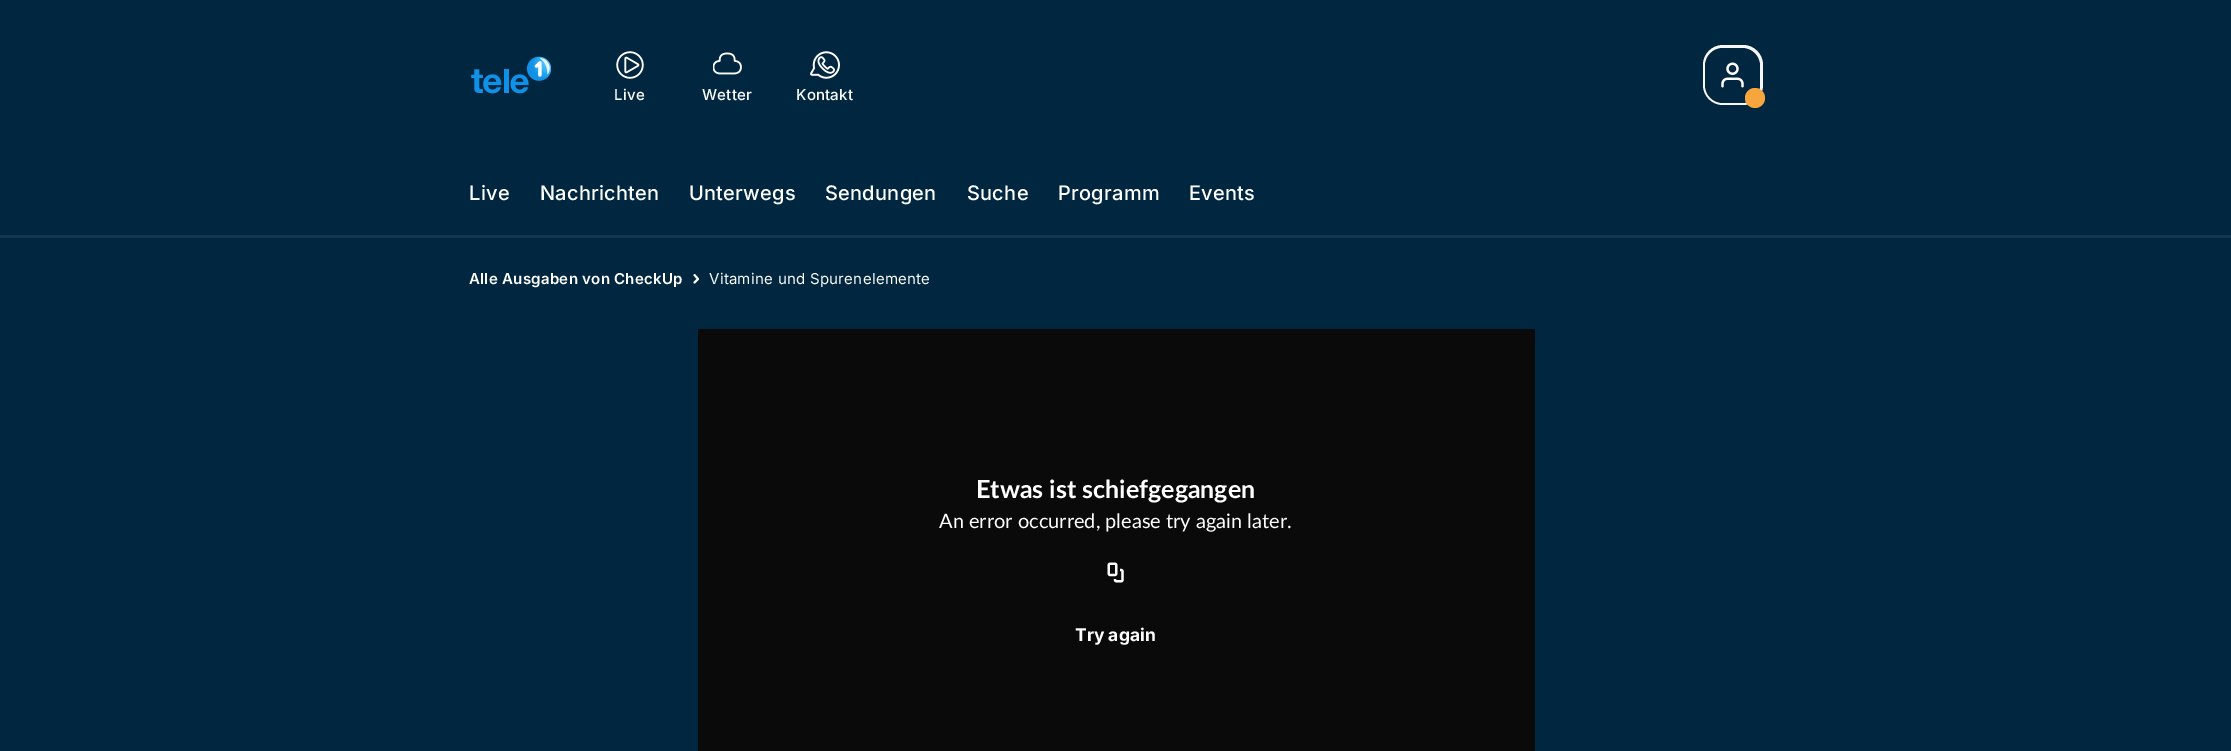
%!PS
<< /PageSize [2231 751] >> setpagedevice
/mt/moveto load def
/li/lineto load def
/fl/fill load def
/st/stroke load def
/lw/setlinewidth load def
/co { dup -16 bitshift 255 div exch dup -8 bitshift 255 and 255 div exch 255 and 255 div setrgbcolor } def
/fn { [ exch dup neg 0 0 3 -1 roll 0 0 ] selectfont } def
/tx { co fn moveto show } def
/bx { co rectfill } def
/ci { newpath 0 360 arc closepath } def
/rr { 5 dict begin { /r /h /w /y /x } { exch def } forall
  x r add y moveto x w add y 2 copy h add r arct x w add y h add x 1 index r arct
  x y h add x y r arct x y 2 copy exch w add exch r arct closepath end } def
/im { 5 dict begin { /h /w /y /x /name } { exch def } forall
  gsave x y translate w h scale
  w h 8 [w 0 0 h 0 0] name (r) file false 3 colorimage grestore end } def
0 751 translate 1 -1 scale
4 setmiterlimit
0 0 2231 751 16#002640 bx
0 235 2231 3 16#14374F bx
(media/1.raw) 471 56 80 38 im
(media/2.raw) 616 51 28 28 im
(media/3.raw) 713 52 29 23 im
(media/4.raw) 810 51 30 28 im
16#F7F7F7 co
1703 45 60 60 20 rr fl
16#002640 co
1705 48 55 55 18 rr fl
(media/5.raw) 1721 62 23 26 im
16#F7A63D co
1755 98 10 ci fl
16#FFFFFF co
1.9 lw
1 setlinecap
1 setlinejoin
694.5 282.5 mt 698 279 li 694.5 275 li st
698 329 837 422 16#0A0A0A bx
(media/6.raw) 1107 562 17 21 im
/Inter-Medium 15 fn
16#FFFFFF co
614 100 mt .25 0 (Live) ashow
702 100 mt .25 0 (Wetter) ashow
796 100 mt .25 0 (Kontakt) ashow
/Inter-Medium 20 fn
469 200 mt .25 0 (Live) ashow
540 200 mt .25 0 (Nachrichten) ashow
689 200 mt .25 0 (Unterwegs) ashow
825 200 mt .25 0 (Sendungen) ashow
967 200 mt .25 0 (Suche) ashow
1058 200 mt .25 0 (Programm) ashow
1189 200 mt .25 0 (Events) ashow
/Inter-SemiBold 15 fn
469 284 mt .3 0 (Alle Ausgaben von CheckUp) ashow
/Inter-Regular 15 fn
709 284 mt .3 0 (Vitamine und Spurenelemente) ashow
(Etwas ist schiefgegangen) 976 498 /Lato-Bold 25 16#FFFFFF tx
(An error occurred, please try again later.) 939 528 /Lato-Regular 20 16#FFFFFF tx
(Try again) 1075 641 /Inter-Bold 17.5 16#FFFFFF tx
showpage
